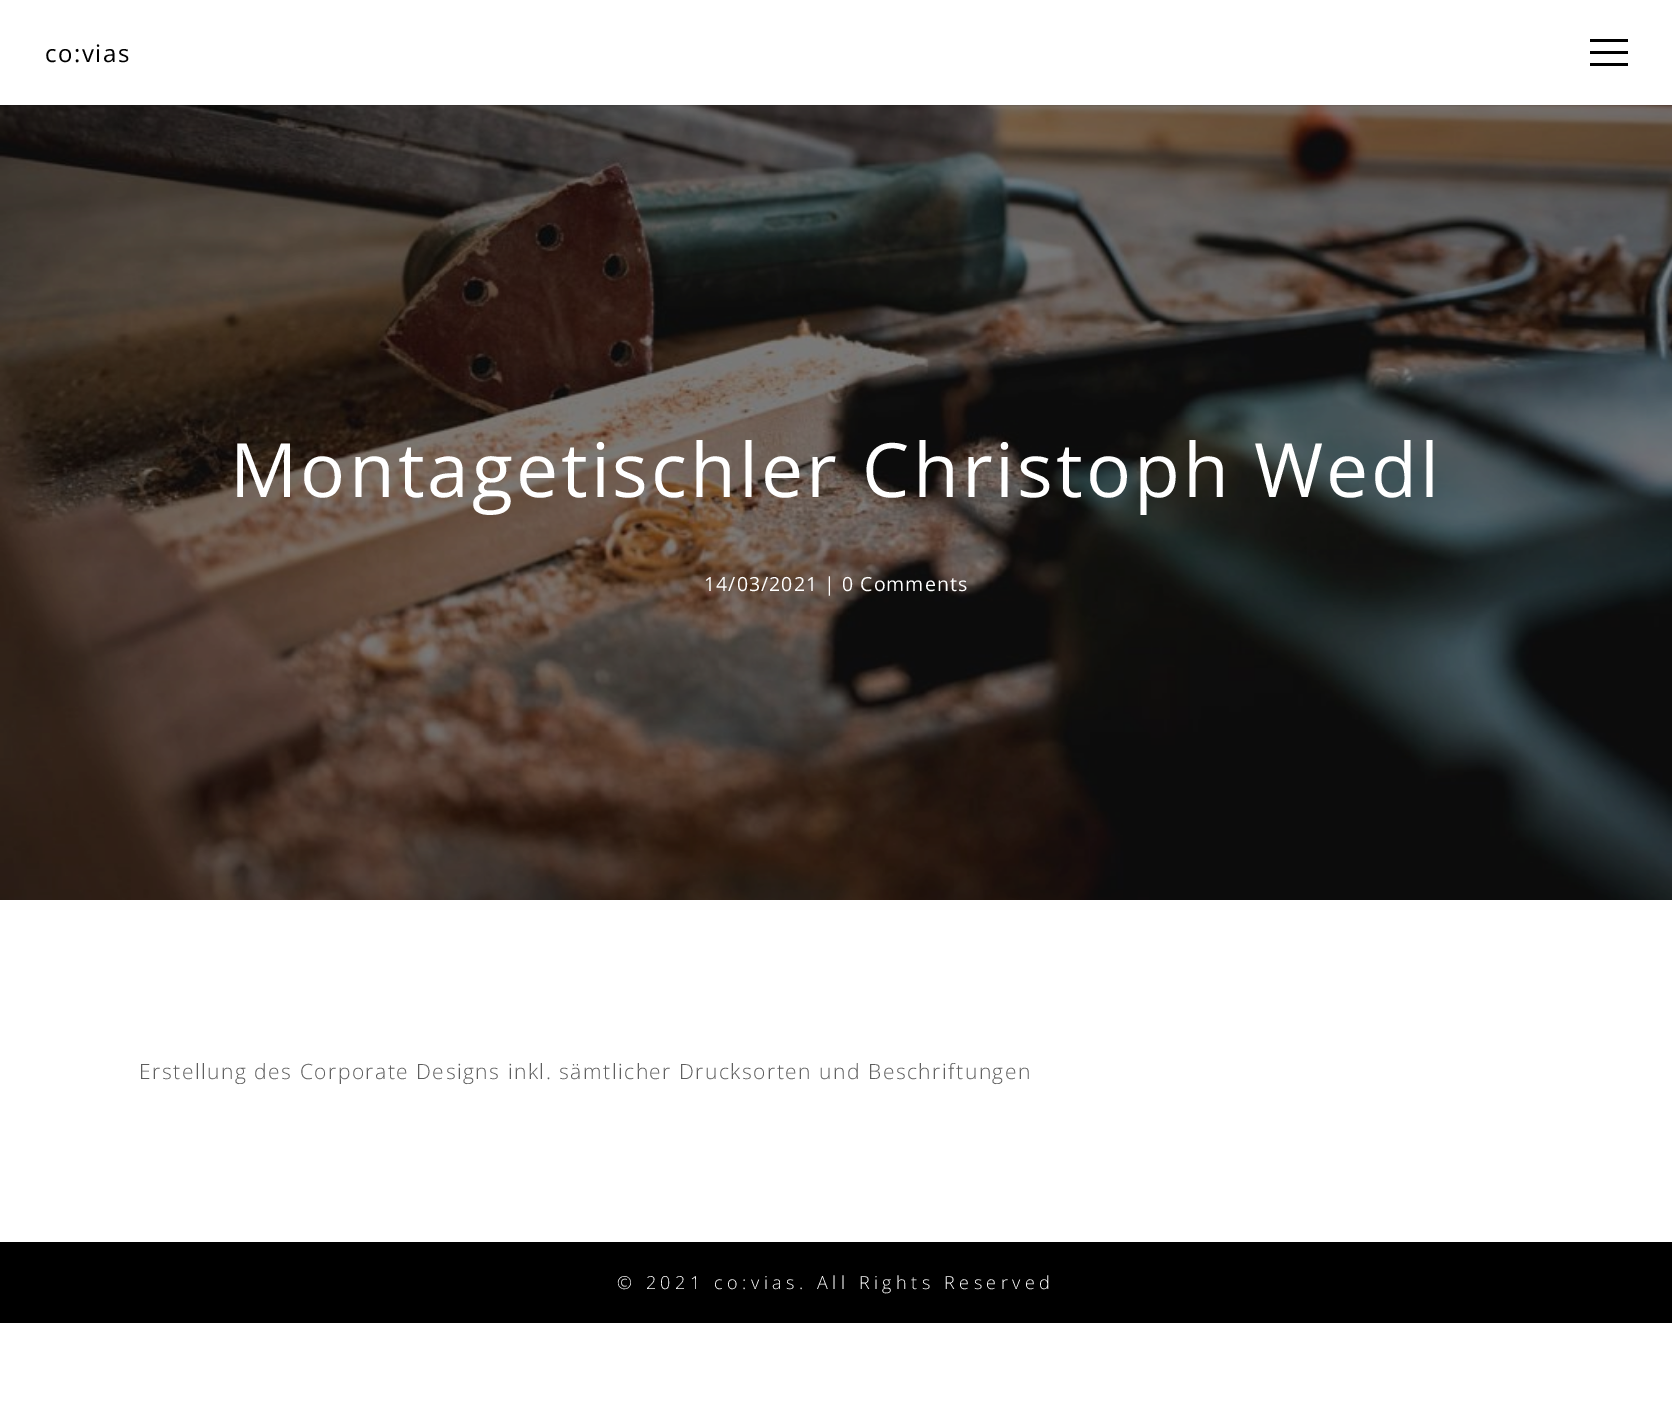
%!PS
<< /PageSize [1672 1414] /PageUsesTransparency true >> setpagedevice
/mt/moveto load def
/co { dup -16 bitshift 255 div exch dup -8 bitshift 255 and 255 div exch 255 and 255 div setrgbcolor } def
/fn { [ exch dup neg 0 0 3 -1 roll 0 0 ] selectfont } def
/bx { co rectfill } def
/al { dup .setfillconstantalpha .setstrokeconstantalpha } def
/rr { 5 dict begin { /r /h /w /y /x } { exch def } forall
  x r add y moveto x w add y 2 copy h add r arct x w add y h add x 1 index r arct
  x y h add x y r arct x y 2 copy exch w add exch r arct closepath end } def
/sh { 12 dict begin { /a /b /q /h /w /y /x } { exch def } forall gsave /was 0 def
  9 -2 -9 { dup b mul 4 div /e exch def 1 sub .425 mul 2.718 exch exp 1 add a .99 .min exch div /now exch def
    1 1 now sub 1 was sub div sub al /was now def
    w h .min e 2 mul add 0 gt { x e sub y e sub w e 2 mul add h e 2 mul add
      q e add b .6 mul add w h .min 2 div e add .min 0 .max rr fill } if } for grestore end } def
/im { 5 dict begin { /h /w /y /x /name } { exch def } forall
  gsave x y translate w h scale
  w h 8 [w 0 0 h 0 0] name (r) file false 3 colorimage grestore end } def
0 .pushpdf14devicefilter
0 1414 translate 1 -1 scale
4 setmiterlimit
0 0 1672 1414 16#FFFFFF bx
(media/1.raw) 0 105 1672 795 im
16#000000 co
0 0 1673 105 0 1 .3 sh
0 0 1672 105 16#FFFFFF bx
1590 39 38 3 16#000000 bx
1590 51 38 3 16#000000 bx
1590 63 38 3 16#000000 bx
0 1242 1672 81 16#000000 bx
/OpenSans-Regular 24 fn
45 62 mt 1.5 0 (co:vias) ashow
/OpenSans-Regular 75 fn
16#FFFFFF co
230 497 mt 3 0 (Montagetischler Christoph Wedl) ashow
/OpenSans-Regular 19.5 fn
704 591 mt 1.05 0 (14/03/2021 | 0 Comments) ashow
/OpenSans-Light 21 fn
16#5E5E5E co
139 1079 mt 1.5 0 (Erstellung des Corporate Designs inkl. sämtlicher Drucksorten und Beschriftungen) ashow
/OpenSans-Light 18 fn
16#FFFFFF co
617 1289 mt 4.5 0 (© 2021 co:vias. All Rights Reserved) ashow
.poppdf14devicefilter showpage
